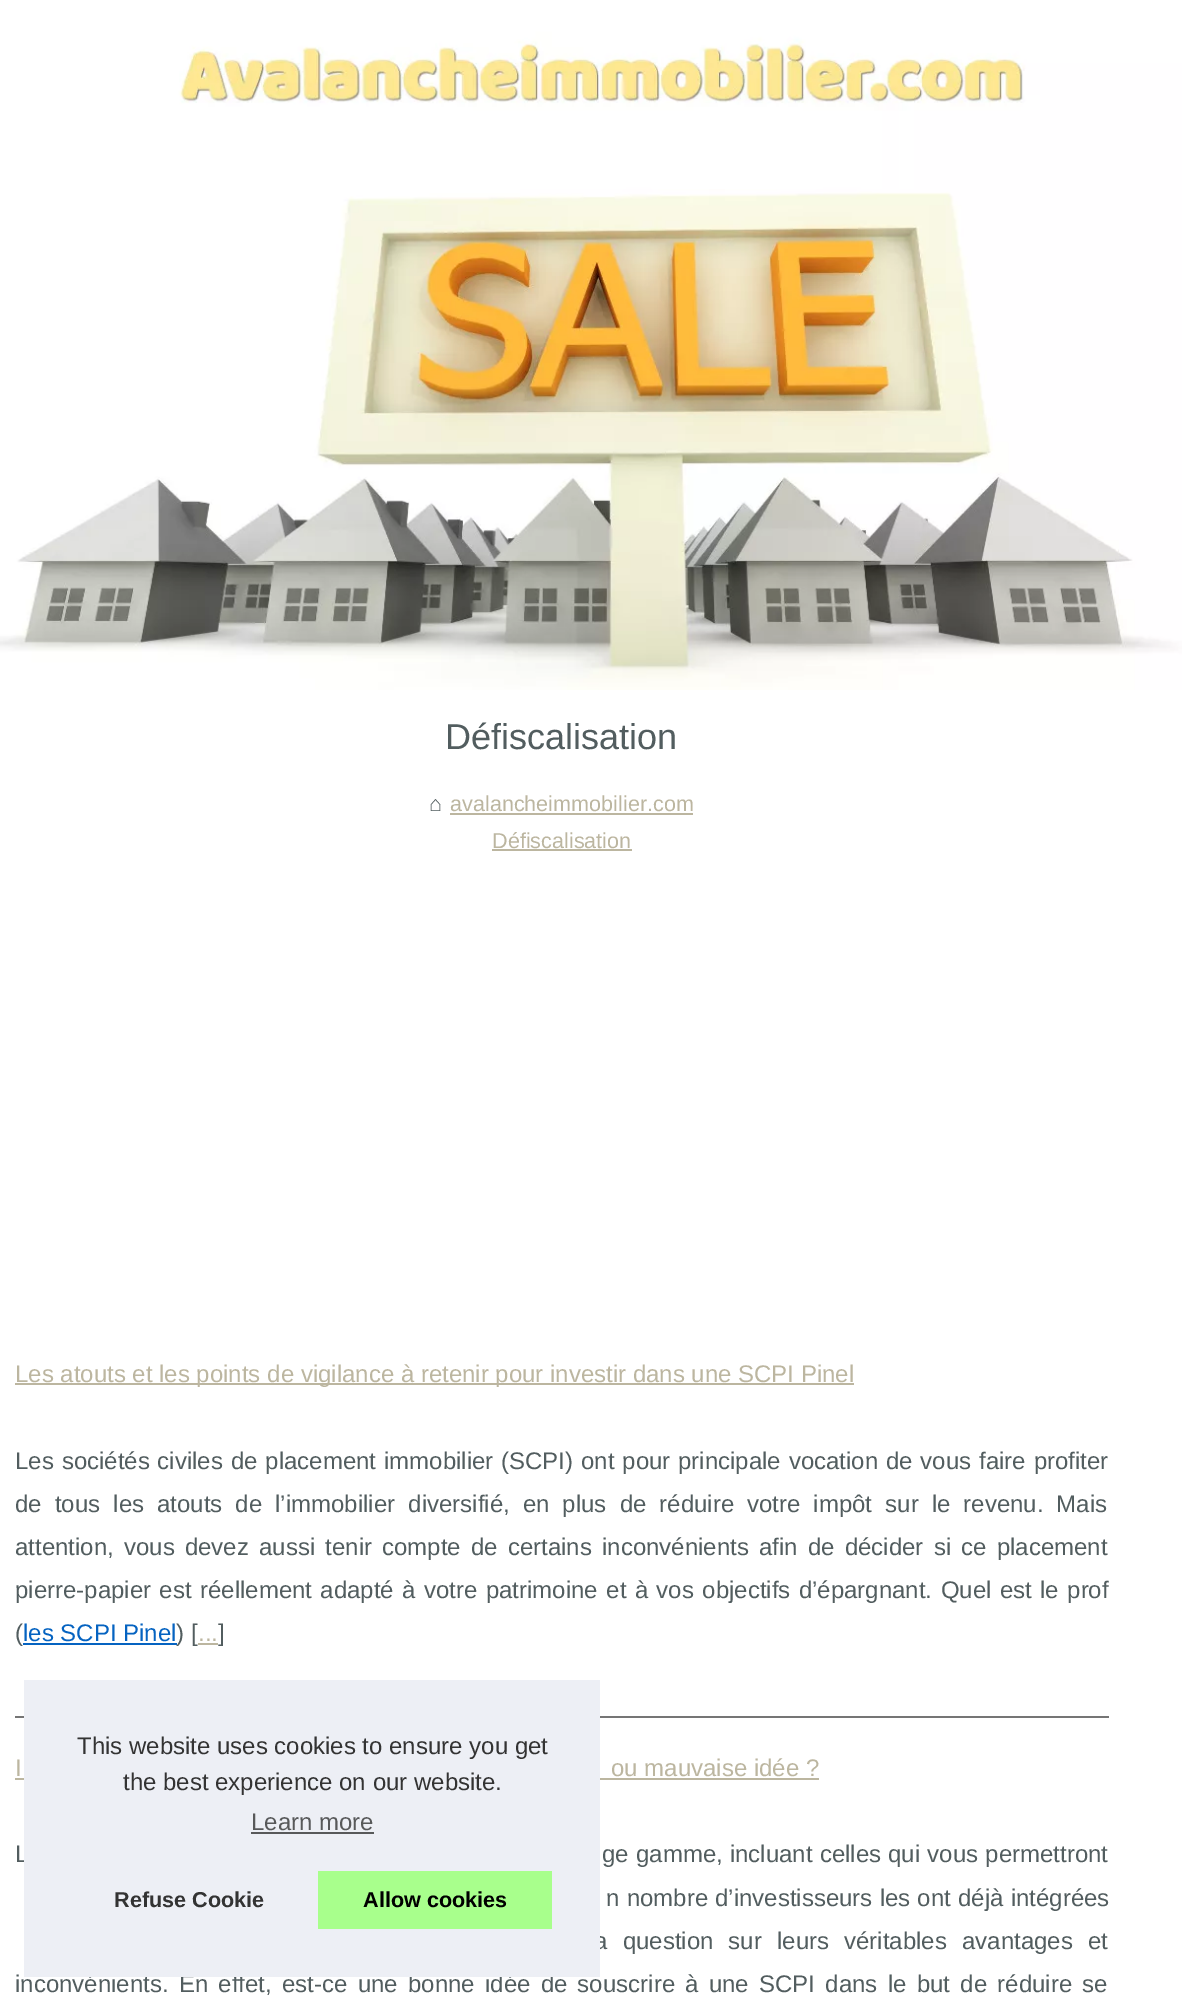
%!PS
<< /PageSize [1182 2000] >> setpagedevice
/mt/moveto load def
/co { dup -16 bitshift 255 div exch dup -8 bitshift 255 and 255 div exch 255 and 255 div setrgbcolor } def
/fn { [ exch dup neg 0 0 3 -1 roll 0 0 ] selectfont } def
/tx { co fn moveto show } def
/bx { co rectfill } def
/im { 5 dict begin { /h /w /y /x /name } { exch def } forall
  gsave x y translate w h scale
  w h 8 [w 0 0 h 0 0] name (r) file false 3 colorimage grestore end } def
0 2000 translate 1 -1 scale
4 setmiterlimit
0 0 1182 2000 16#FFFFFF bx
(media/1.raw) 0 0 1182 690 im
450 813 243 2 16#BCB6A0 bx
492 849 140 2 16#BCB6A0 bx
15 1383 839 2 16#BCB6A0 bx
23 1643 154 2 16#0563C1 bx
198 1643 20 2 16#BCB6A0 bx
15 1716 1094 2 16#757575 bx
15 1778 804 2 16#BCB6A0 bx
(Défiscalisation) 445 749 /LiberationSans-Regular 36 16#525D5F tx
(⌂) 429 811 /LiberationSans-Regular 21.6 16#525D5F tx
(avalancheimmobilier.com) 450 811 /LiberationSans-Regular 21.6 16#BCB6A0 tx
(Défiscalisation) 492 848 /LiberationSans-Regular 21.6 16#BCB6A0 tx
(Les atouts et les points de vigilance à retenir pour investir dans une SCPI Pinel) 15 1382 /LiberationSans-Regular 24 16#BCB6A0 tx
16#525D5F co
15 1469 mt 1.2 0 32 (Les sociétés civiles de placement immobilier \(SCPI\) ont pour principale vocation de vous faire profiter) widthshow
15 1512 mt 6.4 0 32 (de tous les atouts de l’immobilier diversifié, en plus de réduire votre impôt sur le revenu. Mais) widthshow
15 1555 mt 3.5 0 32 (attention, vous devez aussi tenir compte de certains inconvénients afin de décider si ce placement) widthshow
15 1598 mt 1.75 0 32 (pierre-papier est réellement adapté à votre patrimoine et à vos objectifs d’épargnant. Quel est le prof) widthshow
(\() 15 1641 /LiberationSans-Regular 24 16#525D5F tx
(les SCPI Pinel) 23 1641 /LiberationSans-Regular 24 16#0563C1 tx
(\) [) 176 1641 /LiberationSans-Regular 24 16#525D5F tx
(...) 198 1641 /LiberationSans-Regular 24 16#BCB6A0 tx
(]) 218 1641 /LiberationSans-Regular 24 16#525D5F tx
(I) 15 1776 /LiberationSans-Regular 24 16#BCB6A0 tx
(ou mauvaise idée ?) 611 1776 /LiberationSans-Regular 24 16#BCB6A0 tx
16#525D5F co
15 1862 mt .5 0 32 (L) widthshow
602 1862 mt .5 0 32 (ge gamme, incluant celles qui vous permettront) widthshow
606 1906 mt .5 0 32 (n nombre d’investisseurs les ont déjà intégrées) widthshow
594 1949 mt 8.5 0 32 (a question sur leurs véritables avantages et) widthshow
15 1992 mt 3.6 0 32 (inconvénients. En effet, est-ce une bonne idée de souscrire à une SCPI dans le but de réduire se) widthshow
24 1680 576 297 16#EDEFF5 bx
(This website uses cookies to ensure you get) 77 1754 /LiberationSans-Regular 24 16#333333 tx
(the best experience on our website.) 123 1790 /LiberationSans-Regular 24 16#333333 tx
(Learn more) 251 1830 /LiberationSans-Regular 24 16#58595A tx
251 1832 123 2 16#58595A bx
(Refuse Cookie) 114 1907 /LiberationSans-Bold 21.6 16#333333 tx
318 1871 234 58 16#A8FF8C bx
(Allow cookies) 363 1907 /LiberationSans-Bold 21.6 16#000000 tx
showpage
